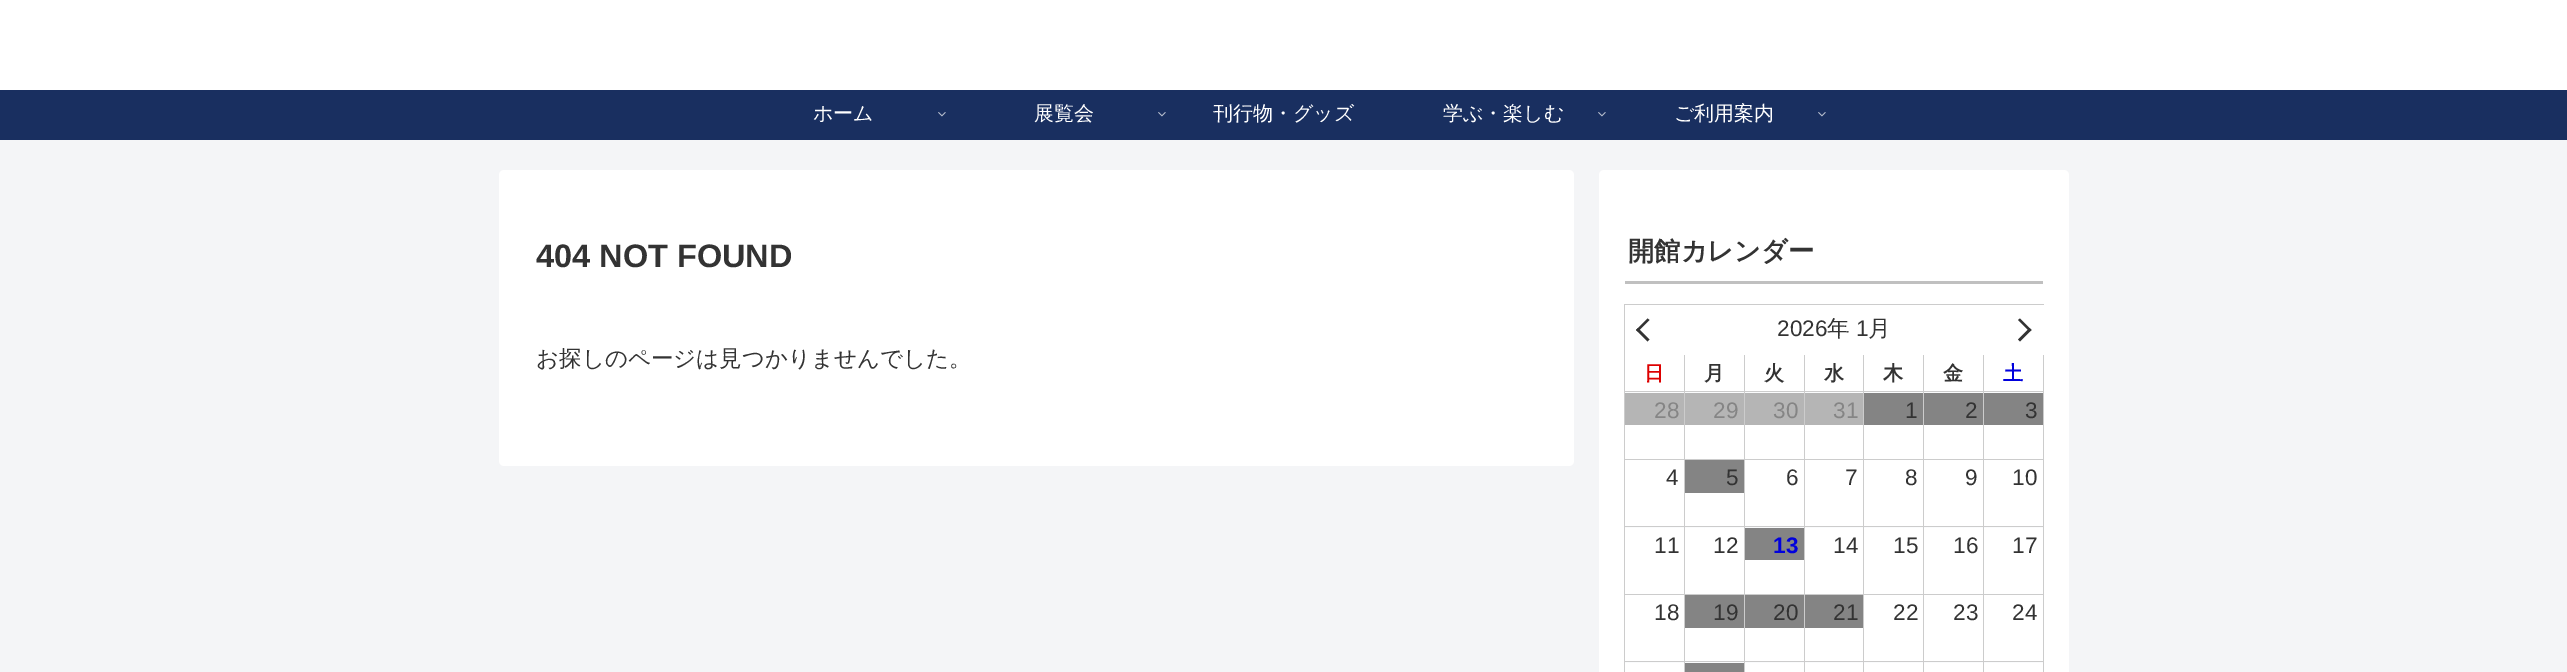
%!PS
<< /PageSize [2567 672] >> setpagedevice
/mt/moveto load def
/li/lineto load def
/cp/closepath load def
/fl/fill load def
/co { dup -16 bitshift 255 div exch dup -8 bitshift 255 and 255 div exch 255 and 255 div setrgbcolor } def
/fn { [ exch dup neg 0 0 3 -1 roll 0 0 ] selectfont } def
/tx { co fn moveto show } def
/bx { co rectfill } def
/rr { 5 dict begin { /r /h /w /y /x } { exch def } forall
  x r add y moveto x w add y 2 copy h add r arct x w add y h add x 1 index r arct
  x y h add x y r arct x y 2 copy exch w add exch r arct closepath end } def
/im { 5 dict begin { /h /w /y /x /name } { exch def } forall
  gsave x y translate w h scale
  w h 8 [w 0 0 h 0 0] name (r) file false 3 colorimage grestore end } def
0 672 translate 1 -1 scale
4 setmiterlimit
0 0 2567 672 16#F4F5F7 bx
0 90 2567 50 16#192F60 bx
0 0 2567 90 16#FFFFFF bx
(media/1.raw) 938 112 8 5 im
(media/1.raw) 1158 112 8 5 im
(media/1.raw) 1598 112 8 5 im
(media/1.raw) 1818 112 8 5 im
499 170 1075 296 5 rr fl
1599 170 470 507 5 rr fl
1625 281 418 3 16#C0C0C0 bx
1624 304 420 1 16#CCCCCC bx
1624 304 1 368 16#CCCCCC bx
16#333333 co
1638 328 mt 1649.5 339.5 li 1647.5 341.5 li 1636 330 li cp fl
1647.5 318.5 mt 1649.5 320 li 1638 331.5 li 1636 330 li cp fl
2020 318.5 mt 2031.5 330 li 2029.5 331.5 li 2018 320 li cp fl
2029.5 328 mt 2031.5 330 li 2020 341.5 li 2018 339.5 li cp fl
1684 355 1 36 16#CCCCCC bx
1744 355 1 36 16#CCCCCC bx
1804 355 1 36 16#CCCCCC bx
1863 355 1 36 16#CCCCCC bx
1923 355 1 36 16#CCCCCC bx
1983 355 1 36 16#CCCCCC bx
2043 355 1 36 16#CCCCCC bx
1625 392 418 1 16#FAFBFC bx
1625 391 419 1 16#CCCCCC bx
1684 391 1 68 16#CCCCCC bx
1625 393 59 32 16#B5B5B5 bx
1744 391 1 68 16#CCCCCC bx
1685 393 59 32 16#B5B5B5 bx
1804 391 1 68 16#CCCCCC bx
1745 393 59 32 16#B5B5B5 bx
1863 391 1 68 16#CCCCCC bx
1805 393 58 32 16#B5B5B5 bx
1923 391 1 68 16#CCCCCC bx
1864 393 59 32 16#848484 bx
1983 391 1 68 16#CCCCCC bx
1924 393 59 32 16#848484 bx
2043 391 1 68 16#CCCCCC bx
1984 393 59 32 16#848484 bx
1625 459 419 1 16#CCCCCC bx
1684 459 1 67 16#CCCCCC bx
1744 459 1 67 16#CCCCCC bx
1685 460 59 33 16#848484 bx
1804 459 1 67 16#CCCCCC bx
1863 459 1 67 16#CCCCCC bx
1923 459 1 67 16#CCCCCC bx
1983 459 1 67 16#CCCCCC bx
2043 459 1 67 16#CCCCCC bx
1625 527 418 1 16#FAFBFC bx
1625 526 419 1 16#CCCCCC bx
1684 526 1 68 16#CCCCCC bx
1744 526 1 68 16#CCCCCC bx
1804 526 1 68 16#CCCCCC bx
1745 528 59 32 16#848484 bx
1863 526 1 68 16#CCCCCC bx
1923 526 1 68 16#CCCCCC bx
1983 526 1 68 16#CCCCCC bx
2043 526 1 68 16#CCCCCC bx
1625 594 419 1 16#CCCCCC bx
1684 594 1 67 16#CCCCCC bx
1744 594 1 67 16#CCCCCC bx
1685 595 59 33 16#848484 bx
1804 594 1 67 16#CCCCCC bx
1745 595 59 33 16#848484 bx
1863 594 1 67 16#CCCCCC bx
1805 595 58 33 16#848484 bx
1923 594 1 67 16#CCCCCC bx
1983 594 1 67 16#CCCCCC bx
2043 594 1 67 16#CCCCCC bx
1625 662 418 1 16#FAFBFC bx
1625 661 419 1 16#CCCCCC bx
1684 661 1 11 16#CCCCCC bx
1744 661 1 11 16#CCCCCC bx
1685 663 59 9 16#848484 bx
1804 661 1 11 16#CCCCCC bx
1863 661 1 11 16#CCCCCC bx
1923 661 1 11 16#CCCCCC bx
1983 661 1 11 16#CCCCCC bx
2043 661 1 11 16#CCCCCC bx
(ホーム) 813 120 /WenQuanYiZenHei-Medium 20 16#FFFFFF tx
(展覧会) 1034 120 /WenQuanYiZenHei-Medium 20 16#FFFFFF tx
(刊行物・グッズ) 1213 120 /WenQuanYiZenHei-Medium 20 16#FFFFFF tx
(学ぶ・楽しむ) 1443 120 /WenQuanYiZenHei-Medium 20 16#FFFFFF tx
(ご利用案内) 1674 120 /WenQuanYiZenHei-Medium 20 16#FFFFFF tx
(404 NOT FOUND) 536 267 /LiberationSans-Bold 32.5 16#333333 tx
(お探しのページは見つかりませんでした。) 536 366 /WenQuanYiZenHei-Medium 22.5 16#333333 tx
(開館カレンダー) 1628 260 /WenQuanYiZenHei-Bold 26.25 16#333333 tx
(2026) 1777 336 /LiberationSans-Regular 22.5 16#333333 tx
(年) 1827 336 /WenQuanYiZenHei-Medium 22.5 16#333333 tx
(1) 1856 336 /LiberationSans-Regular 22.5 16#333333 tx
(月) 1868 336 /WenQuanYiZenHei-Medium 22.5 16#333333 tx
(日) 1644 380 /WenQuanYiZenHei-Bold 20 16#DD0000 tx
(月) 1704 380 /WenQuanYiZenHei-Bold 20 16#333333 tx
(火) 1764 380 /WenQuanYiZenHei-Bold 20 16#333333 tx
(水) 1824 380 /WenQuanYiZenHei-Bold 20 16#333333 tx
(木) 1883 380 /WenQuanYiZenHei-Bold 20 16#333333 tx
(金) 1943 380 /WenQuanYiZenHei-Bold 20 16#333333 tx
(土) 2003 380 /WenQuanYiZenHei-Bold 20 16#0000DD tx
(28) 1654 418 /LiberationSans-Regular 22.5 16#858585 tx
(29) 1713 418 /LiberationSans-Regular 22.5 16#858585 tx
(30) 1773 418 /LiberationSans-Regular 22.5 16#858585 tx
(31) 1833 418 /LiberationSans-Regular 22.5 16#858585 tx
(1) 1905 418 /LiberationSans-Regular 22.5 16#333333 tx
(2) 1965 418 /LiberationSans-Regular 22.5 16#333333 tx
(3) 2025 418 /LiberationSans-Regular 22.5 16#333333 tx
(4) 1666 485 /LiberationSans-Regular 22.5 16#333333 tx
(5) 1726 485 /LiberationSans-Regular 22.5 16#333333 tx
(6) 1786 485 /LiberationSans-Regular 22.5 16#333333 tx
(7) 1845 485 /LiberationSans-Regular 22.5 16#333333 tx
(8) 1905 485 /LiberationSans-Regular 22.5 16#333333 tx
(9) 1965 485 /LiberationSans-Regular 22.5 16#333333 tx
(10) 2012 485 /LiberationSans-Regular 22.5 16#333333 tx
(11) 1654 553 /LiberationSans-Regular 22.5 16#333333 tx
(12) 1713 553 /LiberationSans-Regular 22.5 16#333333 tx
(13) 1773 553 /LiberationSans-Bold 22.5 16#0000DD tx
(14) 1833 553 /LiberationSans-Regular 22.5 16#333333 tx
(15) 1893 553 /LiberationSans-Regular 22.5 16#333333 tx
(16) 1953 553 /LiberationSans-Regular 22.5 16#333333 tx
(17) 2012 553 /LiberationSans-Regular 22.5 16#333333 tx
(18) 1654 620 /LiberationSans-Regular 22.5 16#333333 tx
(19) 1713 620 /LiberationSans-Regular 22.5 16#333333 tx
(20) 1773 620 /LiberationSans-Regular 22.5 16#333333 tx
(21) 1833 620 /LiberationSans-Regular 22.5 16#333333 tx
(22) 1893 620 /LiberationSans-Regular 22.5 16#333333 tx
(23) 1953 620 /LiberationSans-Regular 22.5 16#333333 tx
(24) 2012 620 /LiberationSans-Regular 22.5 16#333333 tx
showpage
